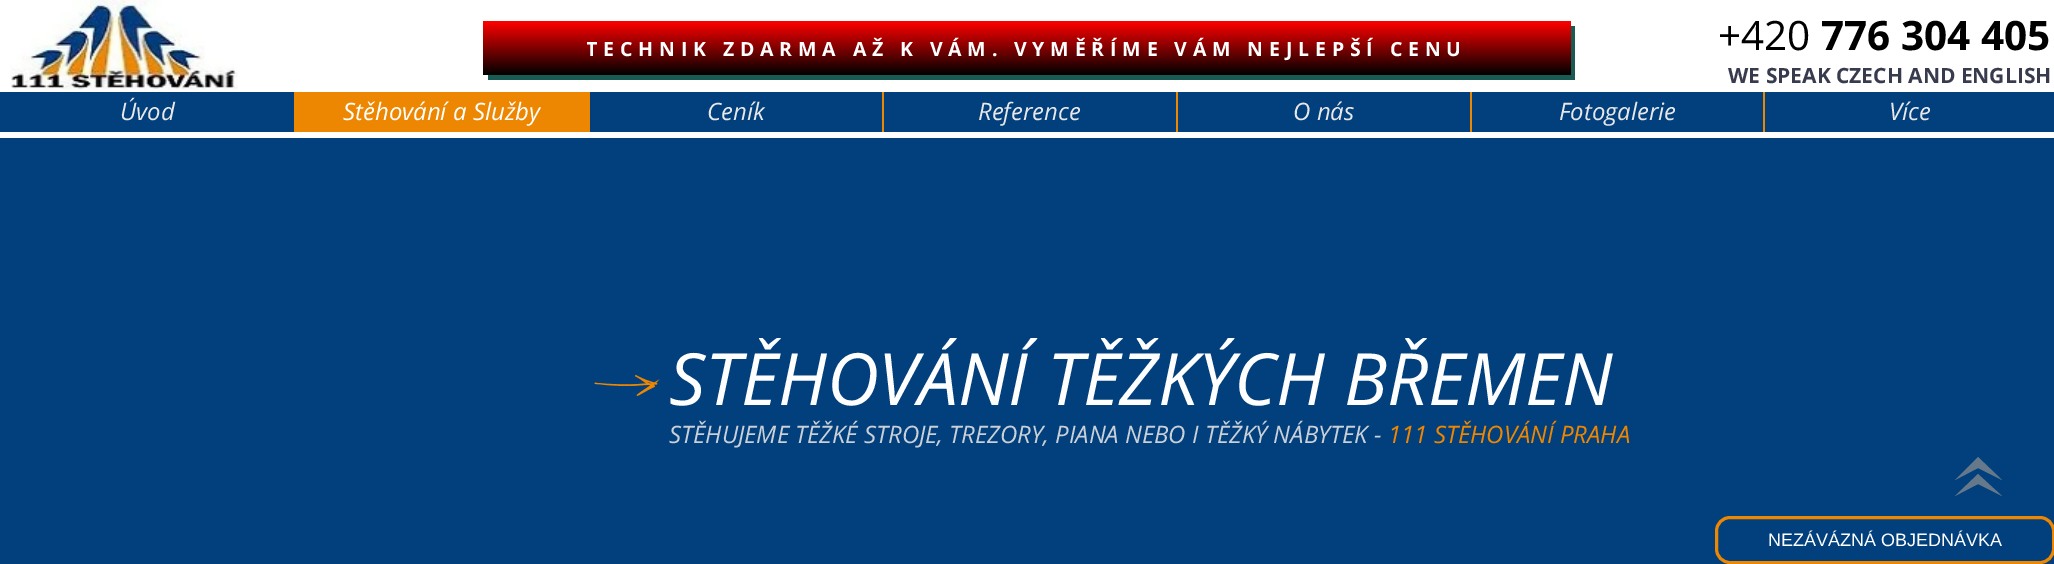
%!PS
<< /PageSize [2054 564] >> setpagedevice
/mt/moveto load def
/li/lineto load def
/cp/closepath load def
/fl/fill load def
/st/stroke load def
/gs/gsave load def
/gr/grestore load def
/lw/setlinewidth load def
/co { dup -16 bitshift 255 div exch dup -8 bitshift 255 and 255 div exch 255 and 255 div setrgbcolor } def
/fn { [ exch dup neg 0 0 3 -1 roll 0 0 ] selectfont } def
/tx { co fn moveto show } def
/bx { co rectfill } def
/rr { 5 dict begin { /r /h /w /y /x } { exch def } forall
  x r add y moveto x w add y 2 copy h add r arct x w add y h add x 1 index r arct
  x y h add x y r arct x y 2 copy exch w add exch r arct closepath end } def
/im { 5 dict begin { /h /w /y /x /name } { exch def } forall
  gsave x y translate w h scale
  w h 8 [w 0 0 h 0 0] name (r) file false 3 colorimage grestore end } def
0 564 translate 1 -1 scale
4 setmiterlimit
0 0 2054 564 16#FFFFFF bx
(media/1.raw) 10 0 228 90 im
16#195B52 co
488 75 mt 488 80 li 1575 80 li 1575 26 li 1570 26 li 1570 75 li cp fl
gs 483 21 mt 1571 21 li 1571 75 li 483 75 li cp clip newpath
<< /ShadingType 2 /ColorSpace /DeviceRGB /Coords [1027 21 1027 75] /Extend [true true] /Function << /FunctionType 2 /Domain [0 1] /C0 [1 0 0] /C1 [0 0 0] /N 1 >> >> shfill gr
0 92 2054 40 16#013F7D bx
294 92 296 40 16#ED8600 bx
882 92 2 40 16#ED8600 bx
1176 92 2 40 16#ED8600 bx
1470 92 2 40 16#ED8600 bx
1763 92 2 40 16#ED8600 bx
0 138 2054 426 16#013F7D bx
(media/2.raw) 594 375 66 21 im
16#ED8600 co
3 lw
1716.5 517.5 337 45 13.5 rr st
16#66798B co
1955 480 mt 1978 457 li 2002 480 li 1978 468 li cp fl
1955 496 mt 1978 474 li 2002 496 li 1978 484 li cp fl
(+420) 1718 50 /OpenSans-Regular 40.5 16#000000 tx
(776 304 405) 1821 50 /OpenSans-Bold 40.5 16#000000 tx
(WE SPEAK CZECH AND ENGLISH) 1728 83 /OpenSans-Bold 21 16#373B4D tx
gs
587 35 880 27 rectclip
/OpenSans-Bold 19.5 fn
16#FFFFFF co
586 56 mt 5.85 0 (TECHNIK ZDARMA AŽ K VÁM. VYMĚŘÍME VÁM NEJLEPŠÍ CENU) ashow
gr
(Úvod) 120 120 /OpenSans-Italic 24 16#E8E8E8 tx
(Stěhování a Služby) 343 120 /OpenSans-Italic 24 16#FFFFFF tx
(Ceník) 707 120 /OpenSans-Italic 24 16#E8E8E8 tx
(Reference) 978 120 /OpenSans-Italic 24 16#E8E8E8 tx
(O nás) 1293 120 /OpenSans-Italic 24 16#E8E8E8 tx
(Fotogalerie) 1559 120 /OpenSans-Italic 24 16#E8E8E8 tx
(Více) 1889 120 /OpenSans-Italic 24 16#E8E8E8 tx
(STĚHOVÁNÍ TĚŽKÝCH BŘEMEN) 669 405 /OpenSans-Italic 72 16#FFFFFF tx
(STĚHUJEME TĚŽKÉ STROJE, TREZORY, PIANA NEBO I TĚŽKÝ NÁBYTEK -) 669 443 /OpenSans-Italic 24 16#C9D0D7 tx
(111 STĚHOVÁNÍ PRAHA) 1388 443 /OpenSans-Italic 24 16#ED8600 tx
(NEZÁVÁZNÁ OBJEDNÁVKA) 1768 546 /LiberationSans-Regular 18 16#FFFFFF tx
showpage
